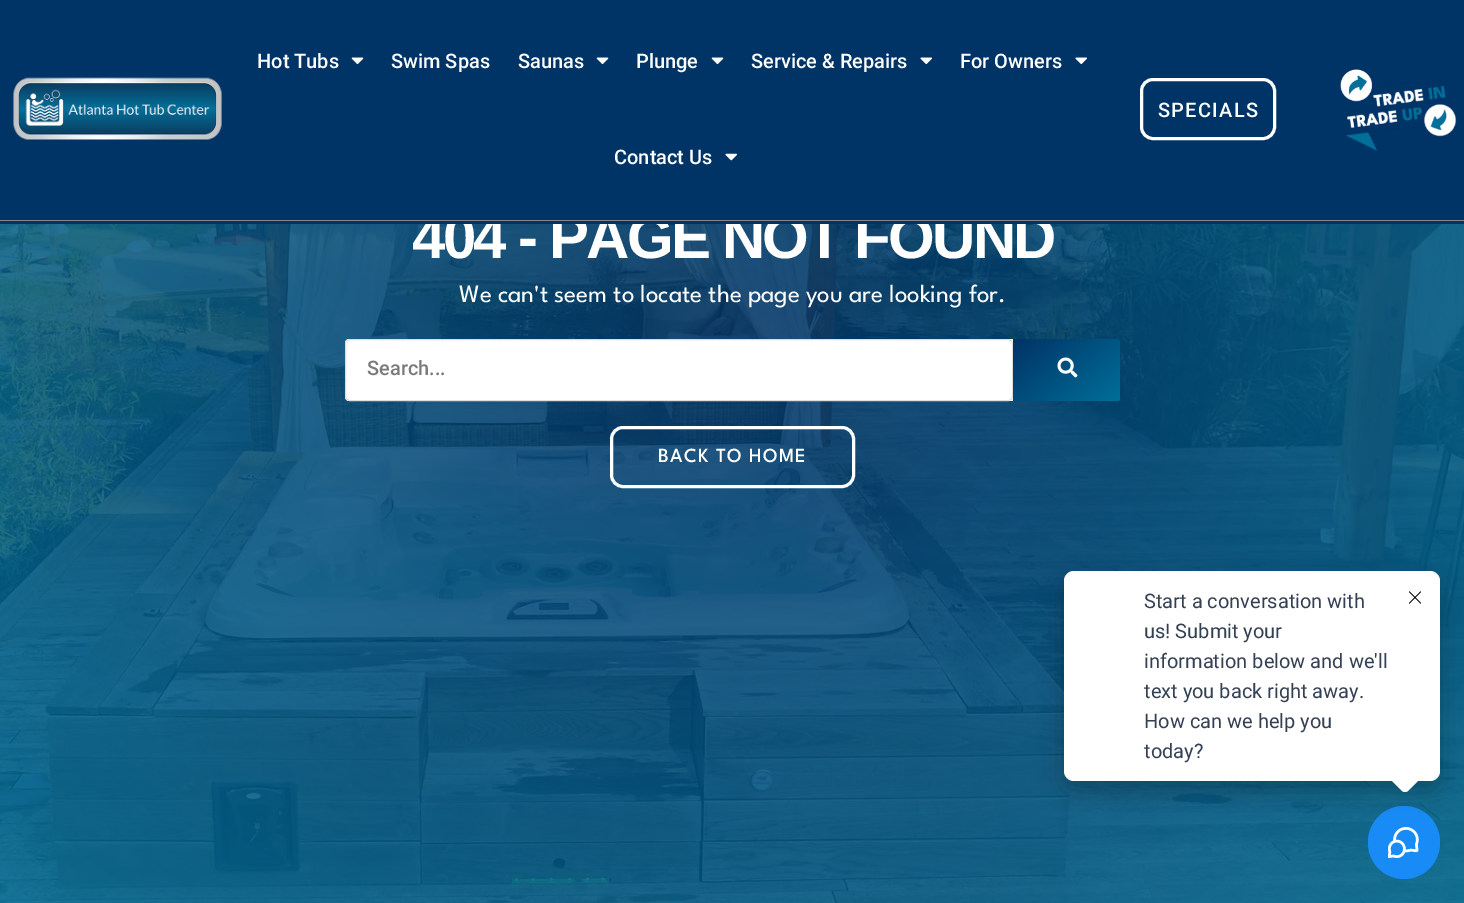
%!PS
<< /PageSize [1464 903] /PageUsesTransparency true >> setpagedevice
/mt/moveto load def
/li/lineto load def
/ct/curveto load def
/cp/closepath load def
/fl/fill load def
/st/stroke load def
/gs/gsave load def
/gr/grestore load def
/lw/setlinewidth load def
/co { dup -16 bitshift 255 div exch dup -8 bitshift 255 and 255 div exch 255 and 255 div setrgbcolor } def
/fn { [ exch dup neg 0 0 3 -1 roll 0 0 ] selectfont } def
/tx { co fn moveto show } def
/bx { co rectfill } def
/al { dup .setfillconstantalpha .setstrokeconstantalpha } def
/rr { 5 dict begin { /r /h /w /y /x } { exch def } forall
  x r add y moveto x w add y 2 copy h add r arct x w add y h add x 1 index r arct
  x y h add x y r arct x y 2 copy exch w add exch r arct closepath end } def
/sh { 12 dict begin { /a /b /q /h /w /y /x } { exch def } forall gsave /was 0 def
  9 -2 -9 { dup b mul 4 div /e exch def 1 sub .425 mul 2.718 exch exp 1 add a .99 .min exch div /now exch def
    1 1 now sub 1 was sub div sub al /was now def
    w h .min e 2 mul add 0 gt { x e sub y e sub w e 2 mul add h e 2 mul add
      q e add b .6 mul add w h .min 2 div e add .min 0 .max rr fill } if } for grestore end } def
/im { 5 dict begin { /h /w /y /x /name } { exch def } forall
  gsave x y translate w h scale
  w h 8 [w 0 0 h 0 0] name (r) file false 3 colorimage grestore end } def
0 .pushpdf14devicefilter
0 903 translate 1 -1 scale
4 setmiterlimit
0 0 1464 903 16#FFFFFF bx
(media/6.raw) 0 224 1464 679 im
16#F1F2F3 co
345 339 775 62 4 rr fl
gs
345 339 775 62 4 rr clip newpath
16#FFFFFF co
345 339 668 62 5 rr fl
gr
16#DDDDDD co
345.5 339.5 667 61 4.5 rr st
gs 1013 339 mt 1116 339 li 1118 339 1120 341 1120 343 ct 1120 397 li 1120 399 1118 401 1116 401 ct 1013 401 li cp clip newpath
<< /ShadingType 2 /ColorSpace /DeviceRGB /Coords [1029 325 1104 415] /Extend [true true] /Function << /FunctionType 2 /Domain [0 1] /C0 [0 .2 .4] /C1 [.004 .435 .596] /N 1 >> >> shfill gr
(media/7.raw) 1057 357 21 21 im
16#FFFFFF co
3 lw
611.5 427.5 242 59 11.5 rr st
16#188BF6 co
1368 806 72 73 36 rr fl
(media/9.raw) 1388 827 31 31 im
16#000000 co
1064 581 376 210 10 12.5 .24 sh
16#FFFFFF co
1064 571 376 210 10 rr fl
1408.5 762 mt 1419 772.5 li 1421 774.5 1421 778 1419 780 ct 1408.5 790.5 li 1406.5 792.5 1403.5 792.5 1401.5 790.5 ct 1391 780 li 1389 778 1389 774.5 1391 772.5 ct 1401.5 762 li 1403.5 760 1406.5 760 1408.5 762 ct cp fl
(media/8.raw) 1409 591 12 13 im
/LiberationSans-Bold 60 fn
412 258 mt -2.75 0 (404 - PAGE NOT FOUND) ashow
0 0 1464 224 16#003366 bx
(media/1.raw) 13 77 209 63 im
(media/4.raw) 725 153 12 8 im
(Contact Us) 614 164 /Roboto-Medium 20 16#FFFFFF tx
(media/3.raw) 1075 57 12 8 im
(For Owners) 960 68 /Roboto-Medium 20 16#FFFFFF tx
(media/3.raw) 920 57 12 8 im
(Service & Repairs) 751 68 /Roboto-Medium 20 16#FFFFFF tx
(media/2.raw) 711 57 13 8 im
(Plunge) 636 68 /Roboto-Medium 20 16#FFFFFF tx
(media/2.raw) 596 57 13 8 im
(Saunas) 518 68 /Roboto-Medium 20 16#FFFFFF tx
(Swim Spas) 391 68 /Roboto-Medium 20 16#FFFFFF tx
(media/2.raw) 351 57 13 8 im
(Hot Tubs) 257 68 /Roboto-Medium 20 16#FFFFFF tx
0 220 1464 1 16#888888 bx
(media/5.raw) 1340 69 117 82 im
16#FFFFFF co
1141.5 79.5 133 59 11.5 rr st
1158 117 mt 1.25 0 (SPECIALS) ashow
(We can't seem to locate the page you are looking for.) 459 302 /LeagueSpartan-Regular 25 16#FFFFFF tx
(Search...) 367 375 /Roboto-Medium 20 16#7A7A7A tx
/LeagueSpartan-Medium 20 fn
16#FFFFFF co
658 462 mt 1.25 0 (BACK TO HOME) ashow
(Start a conversation with) 1144 608 /Roboto-Regular 20 16#344054 tx
(us! Submit your) 1144 638 /Roboto-Regular 20 16#344054 tx
(information below and we'll) 1144 668 /Roboto-Regular 20 16#344054 tx
(text you back right away.) 1144 698 /Roboto-Regular 20 16#344054 tx
(How can we help you) 1144 728 /Roboto-Regular 20 16#344054 tx
(today?) 1144 758 /Roboto-Regular 20 16#344054 tx
.poppdf14devicefilter showpage
